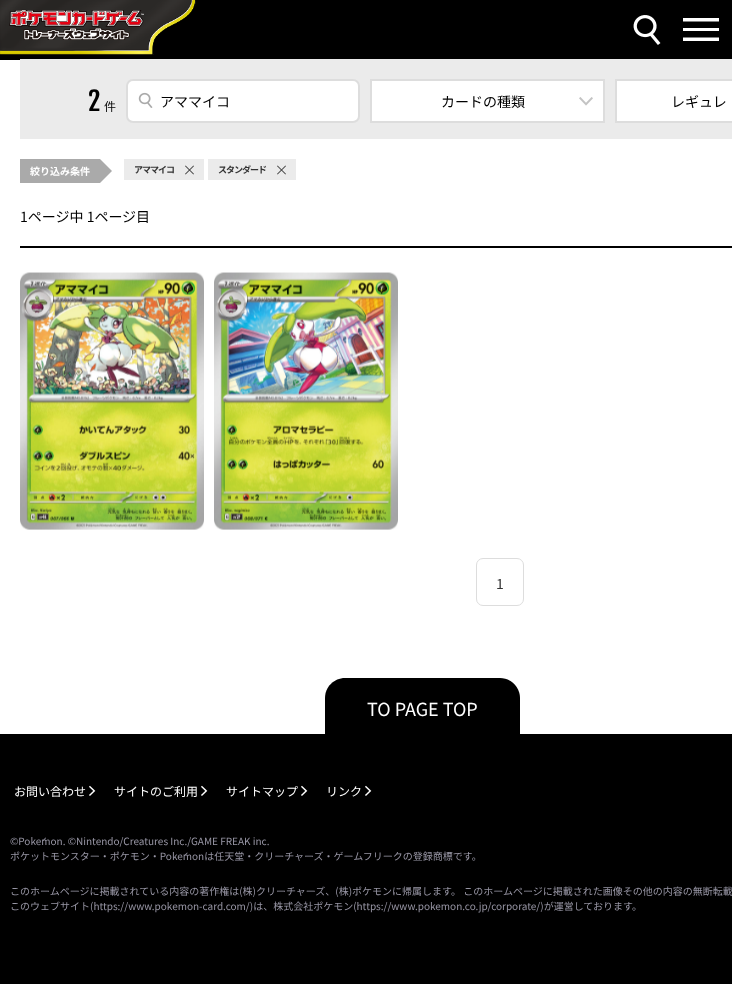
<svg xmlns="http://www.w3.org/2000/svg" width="732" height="984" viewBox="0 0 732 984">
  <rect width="100%" height="100%" fill="#000000"/>
  <rect x="0" y="60" width="732" height="674" fill="#ffffff"/>
  <image x="0" y="0" width="196" height="55" href="img1.png"/>
  <image x="9" y="9" width="135" height="31" href="img2.png"/>
  <image x="633" y="15" width="28" height="30" href="img3.png"/>
  <path d="M683 37.5H719V41H683ZM683 28H719V31H683ZM683 18H719V21.5H683Z" fill="#ffffff"/>
  <rect x="20" y="59" width="712" height="80" fill="#ebebeb"/>
  <text x="88" y="111" font-family="Fjalla One" font-size="26" fill="#000000">2</text>
  <text x="104" y="111" font-family="Noto Sans JP" font-size="12" fill="#000000">件</text>
  <rect x="127" y="80" width="232" height="42" rx="6" fill="#ffffff" stroke="#dddddd" stroke-width="2"/>
  <image x="138" y="92" width="15" height="16" href="img4.png"/>
  <text x="160" y="107" font-family="Noto Sans JP" font-size="14" fill="#000000">アママイコ</text>
  <rect x="371" y="80" width="233" height="42" fill="#ffffff" stroke="#dddddd" stroke-width="2"/>
  <text x="441" y="107" font-family="Noto Sans JP" font-size="14" fill="#000000">カードの種類</text>
  <image x="579" y="97" width="14" height="9" href="img5.png"/>
  <rect x="616" y="80" width="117" height="42" fill="#ffffff" stroke="#dddddd" stroke-width="2"/>
  <text x="671" y="107" font-family="Noto Sans JP" font-size="14" fill="#000000">レギュレ</text>
  <rect x="20" y="159" width="80" height="24" fill="#aaaaaa"/>
  <text x="30" y="175" font-family="Noto Sans JP" font-size="10" font-weight="bold" fill="#ffffff">絞り込み条件</text>
  <path d="M100 183V159L112 171Z" fill="#aaaaaa"/>
  <rect x="124" y="159" width="80" height="21" fill="#ebebeb"/>
  <text x="134" y="173" font-family="Noto Sans JP" font-size="9" font-weight="bold" letter-spacing="-1" fill="#333333">アママイコ</text>
  <image x="185" y="165" width="9" height="10" href="img6.png"/>
  <rect x="208" y="159" width="88" height="21" fill="#ebebeb"/>
  <text x="218" y="173" font-family="Noto Sans JP" font-size="9" font-weight="bold" letter-spacing="-1" fill="#333333">スタンダード</text>
  <image x="277" y="165" width="9" height="10" href="img6.png"/>
  <text x="20" y="222" font-family="Noto Sans JP" font-size="14" fill="#000000">1ページ中 1ページ目</text>
  <rect x="20" y="246" width="712" height="2" fill="#000000"/>
  <image x="20" y="272" width="184" height="258" href="img7.png"/>
  <image x="214" y="272" width="184" height="258" href="img8.png"/>
  <rect x="476.5" y="558.5" width="47" height="47" rx="6.5" fill="none" stroke="#dddddd"/>
  <text x="496" y="589" font-family="Noto Sans JP" font-size="14" fill="#333333">1</text>
  <path d="M345 678H500C511 678 520 687 520 698V734H325V698C325 687 334 678 345 678Z" fill="#000000"/>
  <text x="367" y="716" font-family="Noto Sans JP" font-size="18" fill="#ffffff">TO PAGE TOP</text>
  <text x="14" y="796" font-family="Noto Sans JP" font-size="12" fill="#ffffff">お問い合わせ</text>
  <image x="89" y="785" width="7" height="11" href="img9.png"/>
  <text x="114" y="796" font-family="Noto Sans JP" font-size="12" fill="#ffffff">サイトのご利用</text>
  <image x="201" y="785" width="7" height="11" href="img9.png"/>
  <text x="226" y="796" font-family="Noto Sans JP" font-size="12" fill="#ffffff">サイトマップ</text>
  <image x="301" y="785" width="7" height="11" href="img9.png"/>
  <text x="326" y="796" font-family="Noto Sans JP" font-size="12" fill="#ffffff">リンク</text>
  <image x="365" y="785" width="7" height="11" href="img9.png"/>
  <text x="10" y="845" font-family="Noto Sans JP" font-size="10" fill="#9896a5">©Pokémon. ©Nintendo/Creatures Inc./GAME FREAK inc.</text>
  <text x="10" y="860" font-family="Noto Sans JP" font-size="10" fill="#9896a5">ポケットモンスター・ポケモン・Pokémonは任天堂・クリーチャーズ・ゲームフリークの登録商標です。</text>
  <text x="10" y="895" font-family="Noto Sans JP" font-size="10" fill="#9896a5">このホームページに掲載されている内容の著作権は(株)クリーチャーズ、(株)ポケモンに帰属します。 このホームページに掲載された画像その他の内容の無断転載</text>
  <text x="10" y="910" font-family="Noto Sans JP" font-size="10" fill="#9896a5">このウェブサイト(https://www.pokemon-card.com/)は、株式会社ポケモン(https://www.pokemon.co.jp/corporate/)が運営しております。</text>
</svg>
